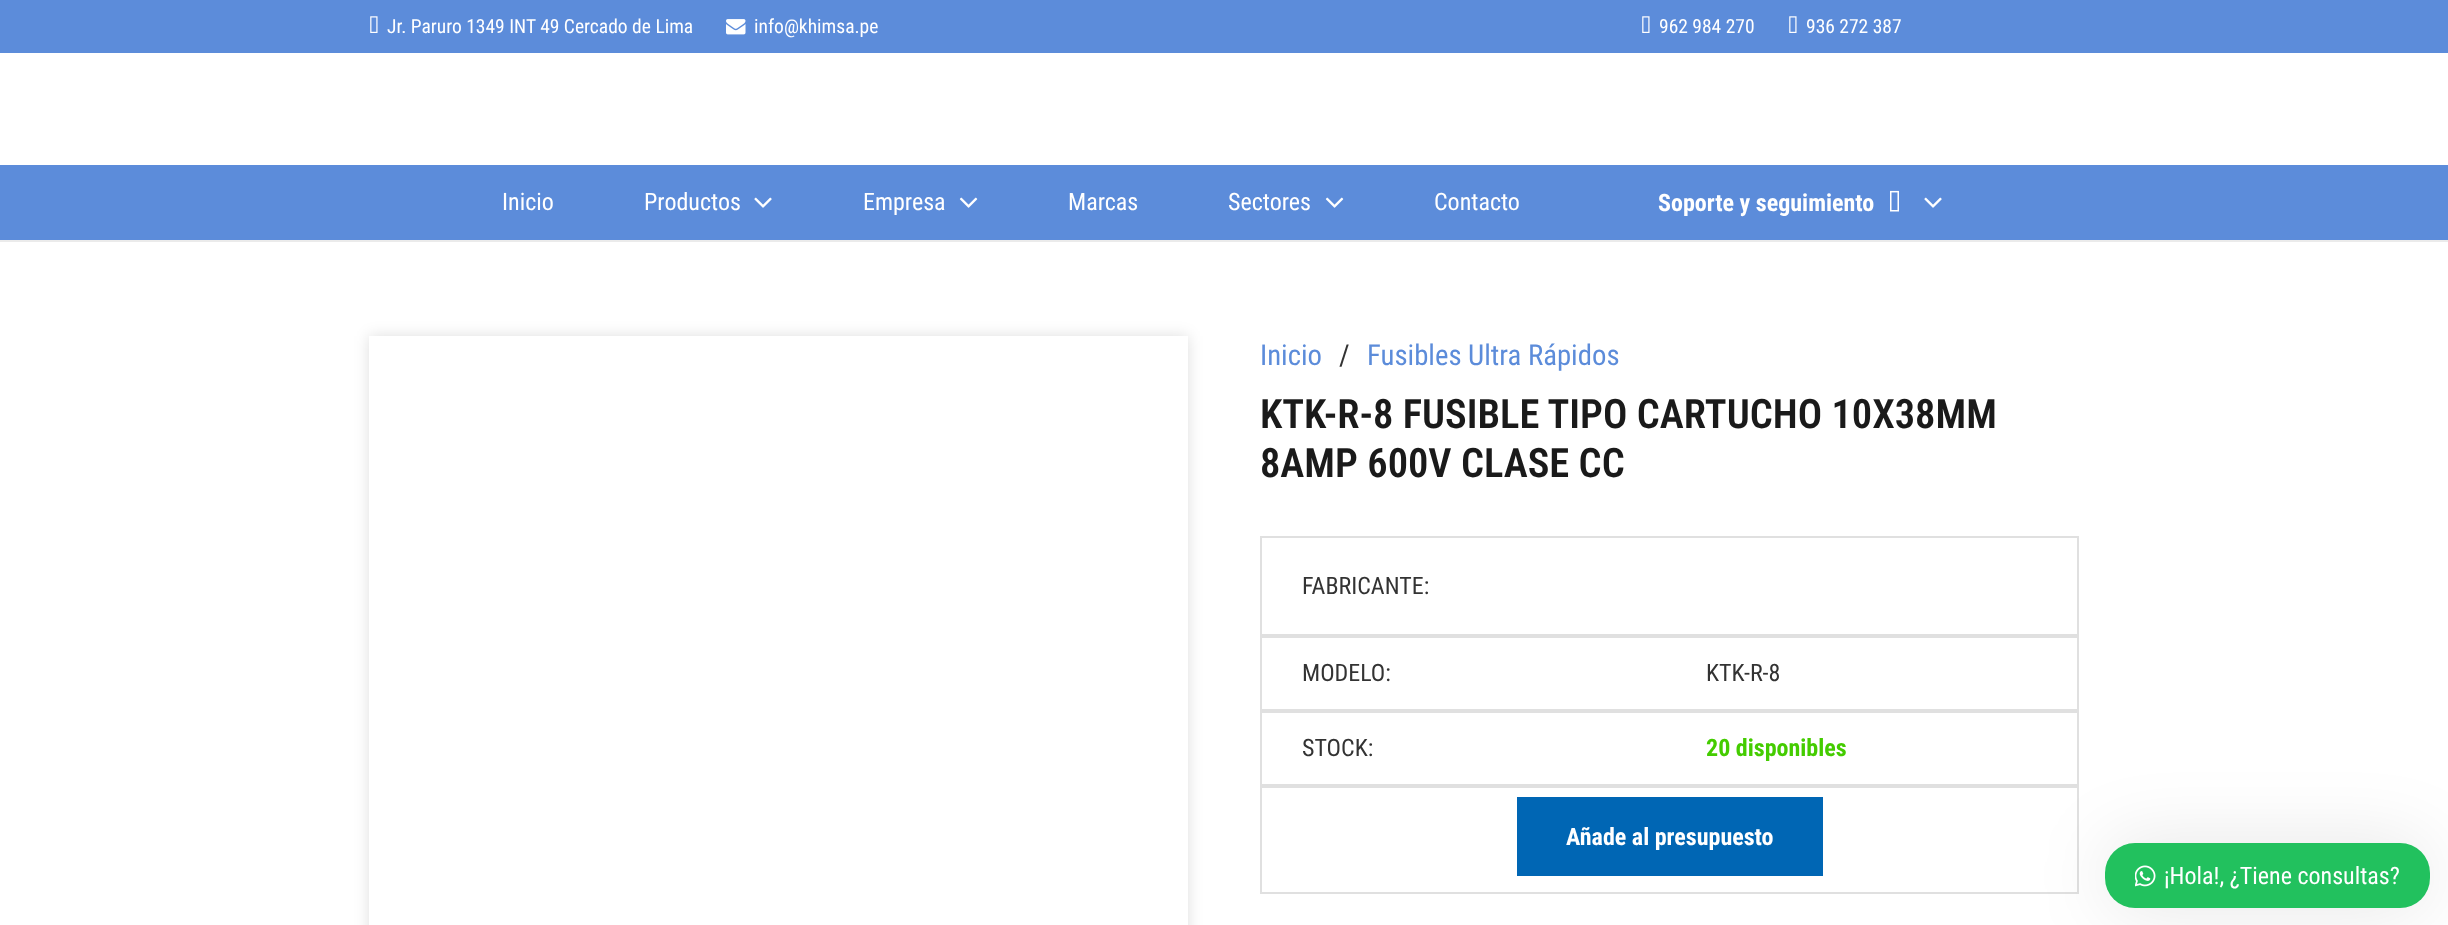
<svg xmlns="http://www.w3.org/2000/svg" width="2448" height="925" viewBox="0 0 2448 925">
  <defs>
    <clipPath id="clip1"><path d="M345 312H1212V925H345ZM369 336H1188V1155H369Z" clip-rule="evenodd"/></clipPath>
    <filter id="blur1" x="-50%" y="-200%" width="200%" height="500%"><feGaussianBlur stdDeviation="7.5"/></filter>
    <filter id="blur2" x="-50%" y="-200%" width="200%" height="500%"><feGaussianBlur stdDeviation="37.5"/></filter>
  </defs>
  <rect width="100%" height="100%" fill="#ffffff"/>
  <rect x="0" y="0" width="2448" height="53" fill="#5c8cda"/>
  <image x="370" y="16" width="8" height="17" href="img1.png"/>
  <text x="387" y="33" font-family="Roboto Condensed" font-size="19.5" fill="#ffffff">Jr. Paruro 1349 INT 49 Cercado de Lima</text>
  <image x="726" y="19" width="20" height="16" href="img2.png"/>
  <text x="754" y="33" font-family="Roboto Condensed" font-size="19.5" fill="#ffffff">info@khimsa.pe</text>
  <image x="1642" y="16" width="8" height="17" href="img1.png"/>
  <text x="1659" y="33" font-family="Roboto Condensed" font-size="19.5" fill="#ffffff">962 984 270</text>
  <image x="1789" y="16" width="8" height="17" href="img1.png"/>
  <text x="1806" y="33" font-family="Roboto Condensed" font-size="19.5" fill="#ffffff">936 272 387</text>
  <rect x="0" y="240" width="2448" height="2" fill="#ebebeb"/>
  <rect x="0" y="165" width="2448" height="75" fill="#5c8cda"/>
  <text x="502" y="210" font-family="Roboto Condensed" font-size="24" fill="#ffffff">Inicio</text>
  <text x="644" y="210" font-family="Roboto Condensed" font-size="24" fill="#ffffff">Productos</text>
  <image x="754" y="197" width="18" height="11" href="img3.png"/>
  <text x="863" y="210" font-family="Roboto Condensed" font-size="24" fill="#ffffff">Empresa</text>
  <image x="959" y="197" width="19" height="11" href="img4.png"/>
  <text x="1068" y="210" font-family="Roboto Condensed" font-size="24" fill="#ffffff">Marcas</text>
  <text x="1228" y="210" font-family="Roboto Condensed" font-size="24" fill="#ffffff">Sectores</text>
  <image x="1325" y="197" width="19" height="11" href="img4.png"/>
  <text x="1434" y="210" font-family="Roboto Condensed" font-size="24" fill="#ffffff">Contacto</text>
  <text x="1658" y="211" font-family="Roboto Condensed" font-size="24" font-weight="bold" fill="#ffffff">Soporte y seguimiento</text>
  <image x="1890" y="190" width="9" height="22" href="img5.png"/>
  <image x="1924" y="197" width="18" height="11" href="img3.png"/>
  <g clip-path="url(#clip1)">
    <rect x="369" y="336" width="819" height="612" fill="#000000" fill-opacity="0.13" filter="url(#blur1)"/>
  </g>
  <text x="1260" y="365" font-family="Roboto Condensed" font-size="28.75" fill="#5c8cda">Inicio</text>
  <text x="1339" y="365" font-family="Roboto Condensed" font-size="28.75" fill="#333333">/</text>
  <text x="1367" y="365" font-family="Roboto Condensed" font-size="28.75" fill="#5c8cda">Fusibles Ultra Rápidos</text>
  <text x="1260" y="428" font-family="Roboto Condensed" font-size="40.5" font-weight="600" fill="#1a1a1a">KTK-R-8 FUSIBLE TIPO CARTUCHO 10X38MM</text>
  <text x="1260" y="477" font-family="Roboto Condensed" font-size="40.5" font-weight="600" fill="#1a1a1a">8AMP 600V CLASE CC</text>
  <rect x="1261" y="537" width="817" height="98" fill="none" stroke="#e0e0e0" stroke-width="2"/>
  <text x="1302" y="594" font-family="Roboto Condensed" font-size="24" fill="#333333">FABRICANTE:</text>
  <rect x="1261" y="637" width="817" height="73" fill="none" stroke="#e0e0e0" stroke-width="2"/>
  <text x="1302" y="681" font-family="Roboto Condensed" font-size="24" fill="#333333">MODELO:</text>
  <text x="1706" y="681" font-family="Roboto Condensed" font-size="24" fill="#333333">KTK-R-8</text>
  <rect x="1261" y="712" width="817" height="73" fill="none" stroke="#e0e0e0" stroke-width="2"/>
  <text x="1302" y="756" font-family="Roboto Condensed" font-size="24" fill="#333333">STOCK:</text>
  <text x="1706" y="756" font-family="Roboto Condensed" font-size="24" font-weight="bold" fill="#44cc00">20 disponibles</text>
  <rect x="1261" y="787" width="817" height="106" fill="none" stroke="#e0e0e0" stroke-width="2"/>
  <rect x="1517" y="797" width="306" height="79" fill="#0066b4"/>
  <text x="1566" y="845" font-family="Roboto Condensed" font-size="24" font-weight="bold" fill="#ffffff">Añade al presupuesto</text>
  <rect x="2105" y="843" width="325" height="65" rx="30" fill="#000000" fill-opacity="0.1" filter="url(#blur2)"/>
  <rect x="2105" y="843" width="325" height="65" rx="30" fill="#22c15e"/>
  <image x="2135" y="865" width="21" height="22" href="img6.png"/>
  <text x="2164" y="884" font-family="Roboto Condensed" font-size="24" fill="#ffffff">¡Hola!, ¿Tiene consultas?</text>
</svg>
